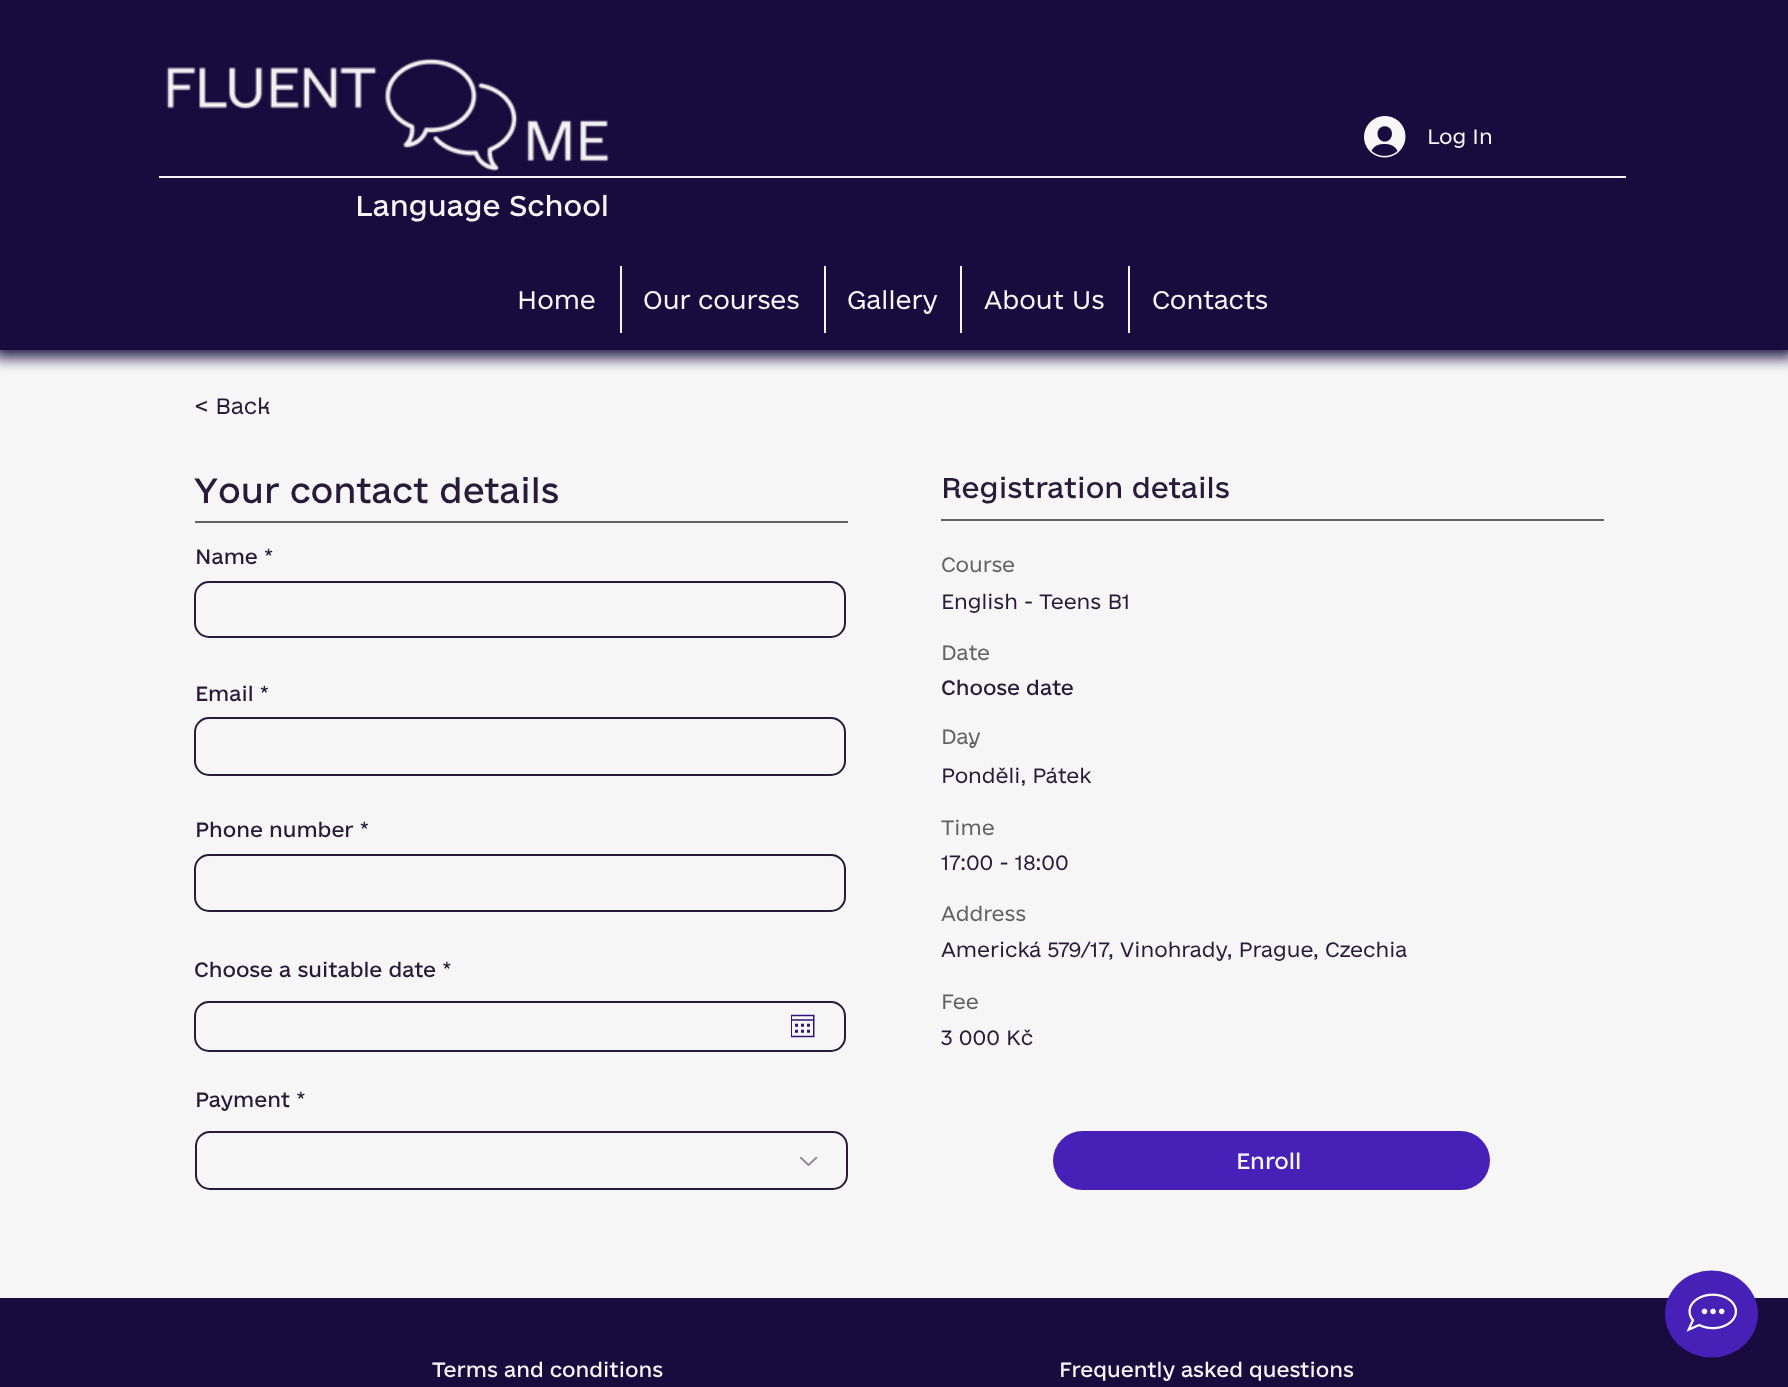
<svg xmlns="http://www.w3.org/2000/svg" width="1788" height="1387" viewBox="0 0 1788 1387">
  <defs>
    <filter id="blur1" x="-50%" y="-200%" width="200%" height="500%"><feGaussianBlur stdDeviation="7.5"/></filter>
  </defs>
  <rect width="100%" height="100%" fill="#f6f6f6"/>
  <rect x="-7" y="-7" width="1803" height="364" fill="#180b3d" filter="url(#blur1)"/>
  <rect x="0" y="0" width="1788" height="350" fill="#180b3d"/>
  <image x="166" y="58" width="444" height="113" href="img1.png"/>
  <image x="1364" y="116" width="42" height="42" href="img2.png"/>
  <text x="1427" y="144" font-family="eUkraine" font-size="19.5" font-weight="300" fill="#f6f6f6">Log In</text>
  <rect x="159" y="176" width="1467" height="2" fill="#f6f6f6"/>
  <text x="355" y="216" font-family="eUkraine" font-size="27" fill="#f6f6f6">Language School</text>
  <text x="517" y="309" font-family="eUkraine" font-size="24" font-weight="300" fill="#f6f6f6">Home</text>
  <rect x="620" y="266" width="2" height="67" fill="#f6f6f6"/>
  <text x="643" y="309" font-family="eUkraine" font-size="24" font-weight="300" fill="#f6f6f6">Our courses</text>
  <rect x="824" y="266" width="2" height="67" fill="#f6f6f6"/>
  <text x="847" y="309" font-family="eUkraine" font-size="24" font-weight="300" fill="#f6f6f6">Gallery</text>
  <rect x="960" y="266" width="2" height="67" fill="#f6f6f6"/>
  <text x="984" y="309" font-family="eUkraine" font-size="24" font-weight="300" fill="#f6f6f6">About Us</text>
  <rect x="1128" y="266" width="2" height="67" fill="#f6f6f6"/>
  <text x="1152" y="309" font-family="eUkraine" font-size="24" font-weight="300" fill="#f6f6f6">Contacts</text>
  <text x="194" y="414" font-family="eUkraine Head" font-size="21" font-weight="300" fill="#281a39">&lt; Back</text>
  <text x="194" y="503" font-family="eUkraine" font-size="33" fill="#281a39">Your contact details</text>
  <rect x="195" y="521" width="653" height="2" fill="#626262"/>
  <text x="195" y="564" font-family="eUkraine" font-size="19.5" fill="#281a39">Name *</text>
  <rect x="195" y="582" width="650" height="55" rx="14" fill="none" stroke="#281a39" stroke-width="2"/>
  <text x="195" y="701" font-family="eUkraine" font-size="19.5" fill="#281a39">Email *</text>
  <rect x="195" y="718" width="650" height="57" rx="14" fill="none" stroke="#281a39" stroke-width="2"/>
  <text x="195" y="837" font-family="eUkraine" font-size="19.5" fill="#281a39">Phone number *</text>
  <rect x="195" y="855" width="650" height="56" rx="14" fill="none" stroke="#281a39" stroke-width="2"/>
  <text x="195" y="1107" font-family="eUkraine" font-size="19.5" fill="#281a39">Payment *</text>
  <rect x="196" y="1132" width="651" height="57" rx="14" fill="none" stroke="#281a39" stroke-width="2"/>
  <image x="800" y="1157" width="18" height="9" href="img3.png"/>
  <text x="941" y="498" font-family="eUkraine Head" font-size="27" fill="#281a39">Registration details</text>
  <rect x="941" y="519" width="663" height="2" fill="#626262"/>
  <text x="941" y="572" font-family="eUkraine Head" font-size="19.5" font-weight="300" fill="#626262">Course</text>
  <text x="941" y="609" font-family="eUkraine" font-size="19.5" font-weight="300" fill="#281a39">English - Teens B1</text>
  <text x="941" y="660" font-family="eUkraine Head" font-size="19.5" font-weight="300" fill="#626262">Date</text>
  <text x="941" y="695" font-family="eUkraine" font-size="19.5" fill="#281a39">Choose date</text>
  <text x="941" y="744" font-family="eUkraine Head" font-size="19.5" font-weight="300" fill="#626262">Day</text>
  <text x="941" y="783" font-family="eUkraine" font-size="19.5" font-weight="300" fill="#281a39">Ponděli, Pátek</text>
  <text x="941" y="835" font-family="eUkraine Head" font-size="19.5" font-weight="300" fill="#626262">Time</text>
  <text x="941" y="870" font-family="eUkraine" font-size="19.5" font-weight="300" fill="#281a39">17:00 - 18:00</text>
  <text x="941" y="921" font-family="eUkraine Head" font-size="19.5" font-weight="300" fill="#626262">Address</text>
  <text x="941" y="957" font-family="eUkraine" font-size="19.5" font-weight="300" fill="#281a39">Americká 579/17, Vinohrady, Prague, Czechia</text>
  <text x="941" y="1009" font-family="eUkraine Head" font-size="19.5" font-weight="300" fill="#626262">Fee</text>
  <text x="941" y="1045" font-family="eUkraine" font-size="19.5" font-weight="300" fill="#281a39">3 000 Kč</text>
  <text x="194" y="977" font-family="eUkraine" font-size="19.5" fill="#281a39">Choose a suitable date *</text>
  <rect x="195" y="1002" width="650" height="49" rx="14" fill="none" stroke="#281a39" stroke-width="2"/>
  <image x="791" y="1014" width="24" height="24" href="img4.png"/>
  <rect x="1053" y="1131" width="437" height="59" rx="29.5" fill="#4720b7"/>
  <text x="1236" y="1169" font-family="eUkraine" font-size="21" fill="#f6f6f6">Enroll</text>
  <rect x="0" y="1298" width="1788" height="89" fill="#180b3d"/>
  <ellipse cx="1711.5" cy="1314" rx="46.5" ry="43.5" fill="#4720b7"/>
  <image x="1686" y="1293" width="52" height="39" href="img5.png"/>
  <text x="432" y="1377" font-family="eUkraine" font-size="19.5" fill="#f6f6f6">Terms and conditions</text>
  <text x="1059" y="1377" font-family="eUkraine" font-size="19.5" fill="#f6f6f6">Frequently asked questions</text>
</svg>
